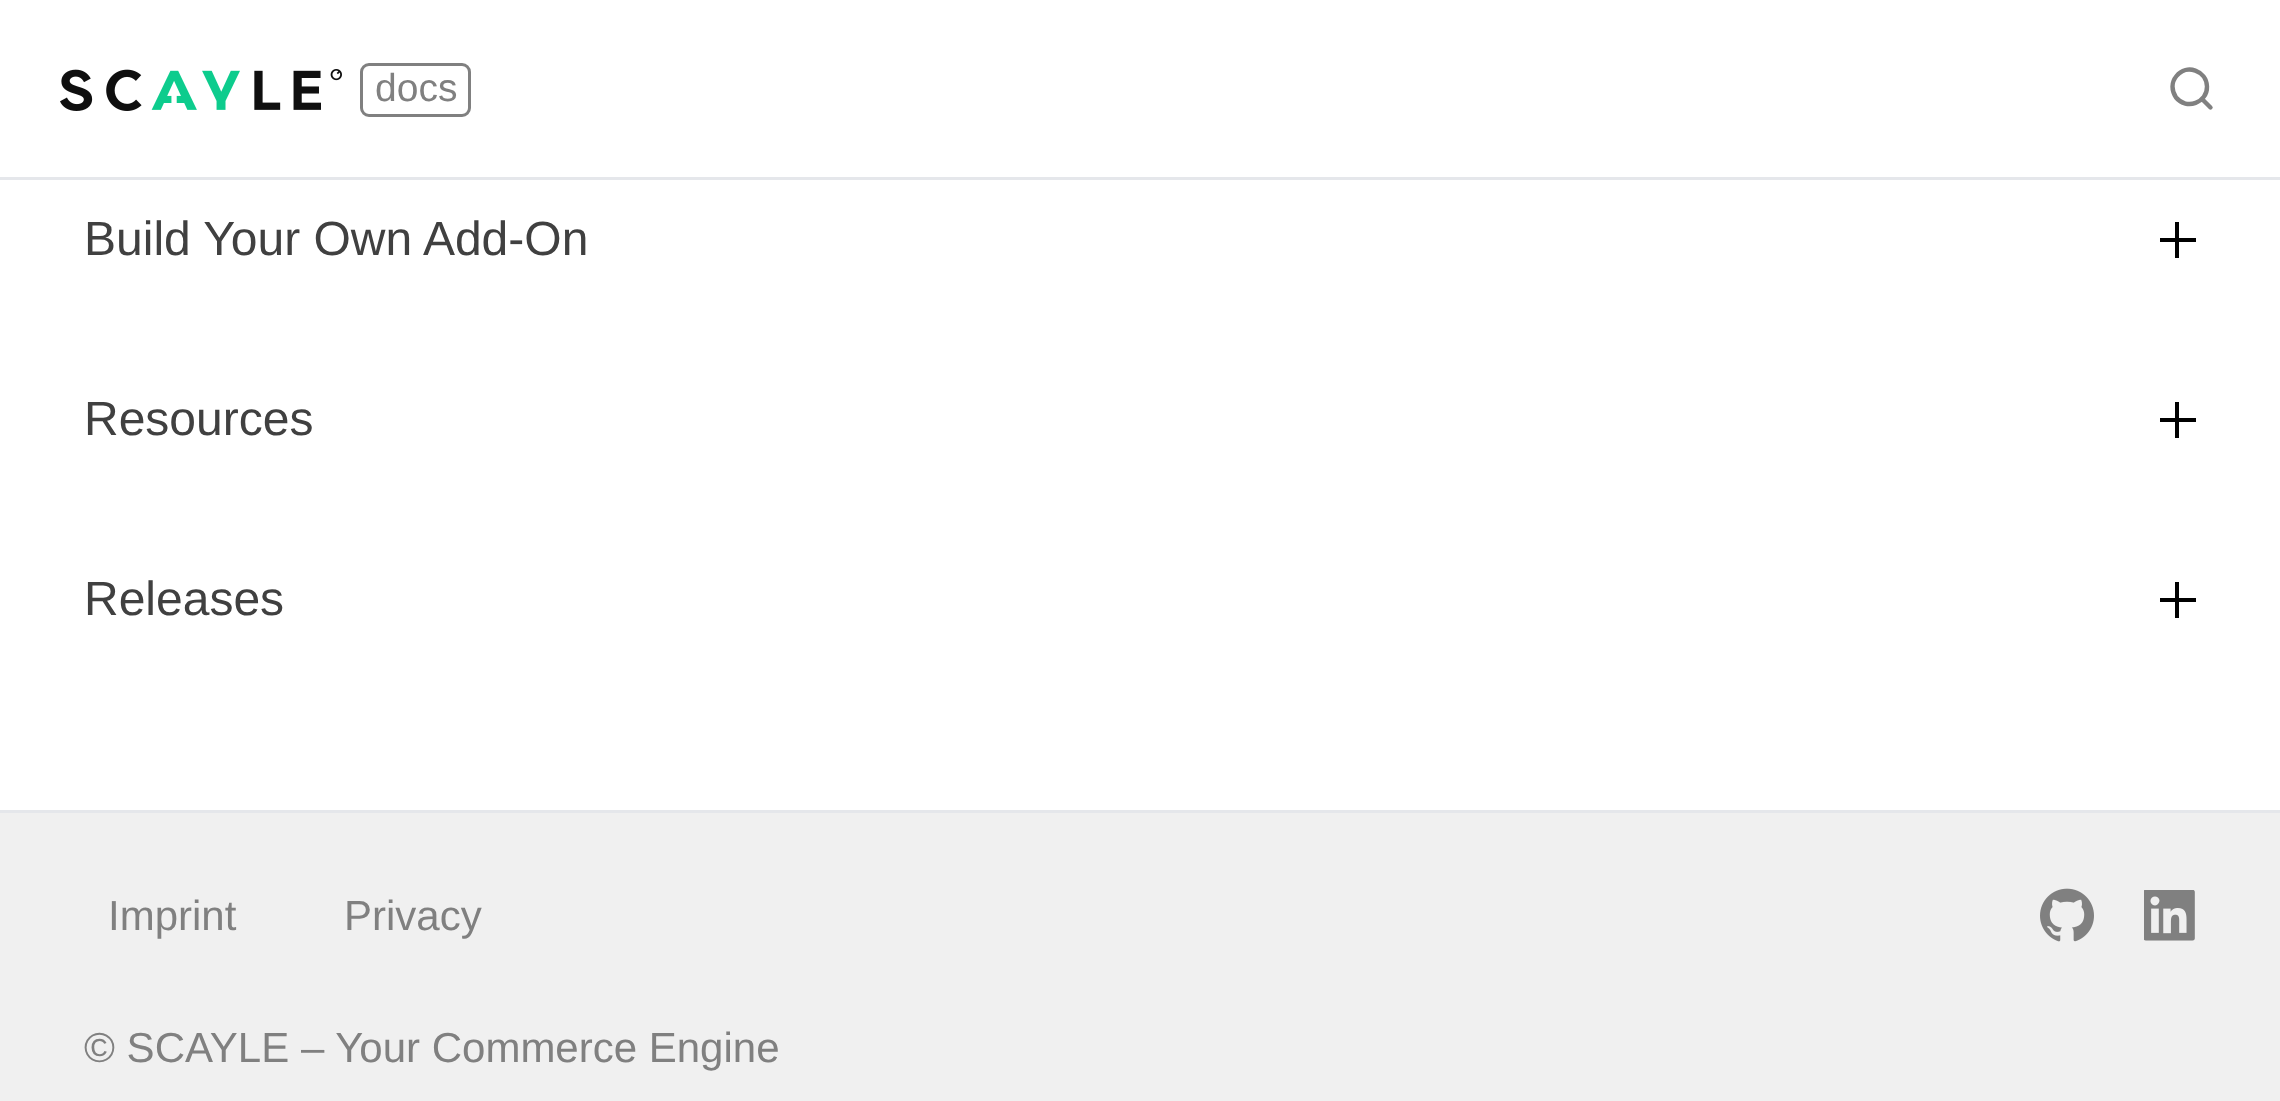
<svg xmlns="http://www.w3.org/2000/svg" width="2280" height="1101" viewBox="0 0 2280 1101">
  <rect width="100%" height="100%" fill="#ffffff"/>
  <rect x="0" y="177" width="2280" height="3" fill="#e5e7eb"/>
  <image x="60" y="69" width="282" height="42" href="img1.png"/>
  <rect x="361.5" y="64.5" width="108" height="51" rx="7.5" fill="none" stroke="#808080" stroke-width="3"/>
  <text x="375" y="101" font-family="Liberation Sans" font-size="39" fill="#808080">docs</text>
  <path d="M2210.5 107.5L2202 99M2172.5 86.5C2172.5 90.5 2174 94.5 2176 97.5C2186.5 110.5 2207.5 102.5 2207 86.5C2206.5 70.5 2186.5 63.5 2176.5 76C2174 79 2172.5 83 2172.5 86.5Z" fill="none" stroke="#808080" stroke-width="4.4" stroke-linecap="round" stroke-linejoin="round"/>
  <text x="84" y="255" font-family="Liberation Sans" font-size="48" fill="#404040">Build Your Own Add-On</text>
  <rect x="2160" y="238" width="36" height="4" fill="#000000"/>
  <rect x="2175" y="222" width="4" height="36" fill="#000000"/>
  <text x="84" y="435" font-family="Liberation Sans" font-size="48" fill="#404040">Resources</text>
  <rect x="2160" y="418" width="36" height="4" fill="#000000"/>
  <rect x="2175" y="402" width="4" height="36" fill="#000000"/>
  <text x="84" y="615" font-family="Liberation Sans" font-size="48" fill="#404040">Releases</text>
  <rect x="2160" y="598" width="36" height="4" fill="#000000"/>
  <rect x="2175" y="582" width="4" height="36" fill="#000000"/>
  <rect x="0" y="813" width="2280" height="288" fill="#f0f0f0"/>
  <rect x="0" y="810" width="2280" height="3" fill="#e5e7eb"/>
  <text x="108" y="930" font-family="Liberation Sans" font-size="42" fill="#808080">Imprint</text>
  <text x="344" y="930" font-family="Liberation Sans" font-size="42" fill="#808080">Privacy</text>
  <image x="2040" y="888" width="54" height="54" href="img2.png"/>
  <image x="2144" y="890" width="51" height="51" href="img3.png"/>
  <text x="84" y="1062" font-family="Liberation Sans" font-size="42" fill="#808080">© SCAYLE – Your Commerce Engine</text>
</svg>
